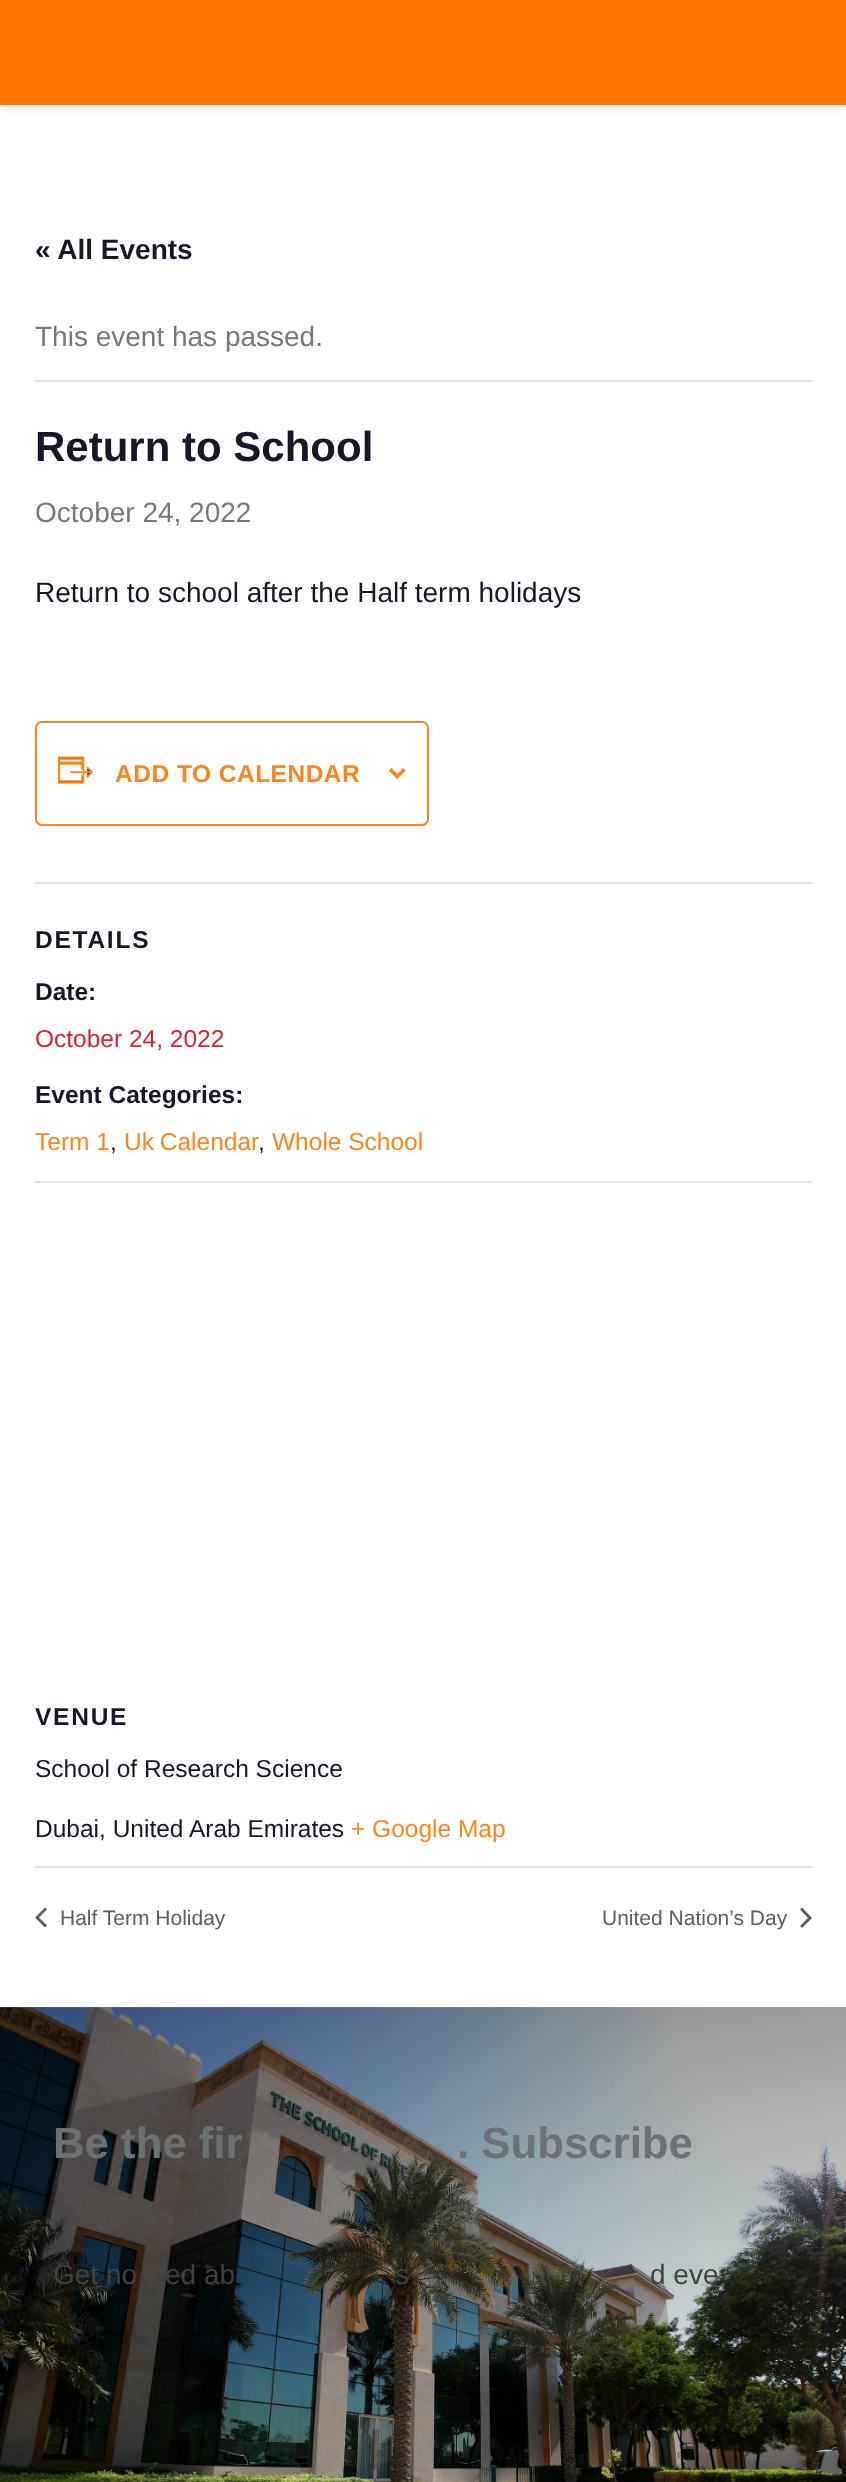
<svg xmlns="http://www.w3.org/2000/svg" width="846" height="2482" viewBox="0 0 846 2482">
  <defs>
    <filter id="blur1" x="-50%" y="-200%" width="200%" height="500%"><feGaussianBlur stdDeviation="7"/></filter>
    <linearGradient id="g1" gradientUnits="userSpaceOnUse" x1="480" y1="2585" x2="367" y2="1943"><stop offset="0" stop-color="#000000" stop-opacity="0"/><stop offset="1" stop-color="#000000" stop-opacity="0.5"/></linearGradient>
  </defs>
  <rect width="100%" height="100%" fill="#ffffff"/>
  <rect x="0" y="2" width="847" height="105" fill="#000000" fill-opacity="0.1" filter="url(#blur1)"/>
  <rect x="0" y="0" width="846" height="105" fill="#ff7600"/>
  <text x="35" y="259" font-family="Liberation Sans" font-size="28" font-weight="bold" fill="#141827">« All Events</text>
  <rect x="35" y="380" width="777" height="2" fill="#e4e4e4"/>
  <text x="35" y="346" font-family="Liberation Sans" font-size="28" fill="#777777">This event has passed.</text>
  <text x="35" y="461" font-family="Liberation Sans" font-size="42" font-weight="bold" fill="#141827">Return to School</text>
  <text x="35" y="522" font-family="Liberation Sans" font-size="28" fill="#777777">October 24, 2022</text>
  <text x="35" y="602" font-family="Liberation Sans" font-size="28" fill="#141827">Return to school after the Half term holidays</text>
  <rect x="36" y="722" width="392" height="103" rx="6" fill="none" stroke="#fd841b" stroke-width="2"/>
  <image x="58" y="756" width="35" height="28" href="img1.png"/>
  <text x="115" y="782" font-family="Liberation Sans" font-size="24.5" font-weight="bold" letter-spacing="0.5" fill="#fd841b">ADD TO CALENDAR</text>
  <image x="389" y="768" width="17" height="11" href="img2.png"/>
  <rect x="35" y="882" width="777" height="2" fill="#e4e4e4"/>
  <text x="35" y="948" font-family="Liberation Sans" font-size="24.5" font-weight="bold" letter-spacing="1.75" fill="#141827">DETAILS</text>
  <text x="35" y="1000" font-family="Liberation Sans" font-size="24.5" font-weight="bold" fill="#141827">Date:</text>
  <text x="35" y="1047" font-family="Liberation Sans" font-size="24.5" fill="#d62432">October 24, 2022</text>
  <text x="35" y="1103" font-family="Liberation Sans" font-size="24.5" font-weight="bold" fill="#141827">Event Categories:</text>
  <text x="35" y="1150" font-family="Liberation Sans" font-size="24.5" fill="#fd841b">Term 1</text>
  <text x="110" y="1150" font-family="Liberation Sans" font-size="24.5" fill="#141827">,</text>
  <text x="124" y="1150" word-spacing="-1" font-family="Liberation Sans" font-size="24.5" fill="#fd841b">Uk Calendar</text>
  <text x="258" y="1150" font-family="Liberation Sans" font-size="24.5" fill="#141827">,</text>
  <text x="272" y="1150" font-family="Liberation Sans" font-size="24.5" fill="#fd841b">Whole School</text>
  <rect x="35" y="1181" width="777" height="2" fill="#e4e4e4"/>
  <text x="35" y="1725" font-family="Liberation Sans" font-size="24.5" font-weight="bold" letter-spacing="1.75" fill="#141827">VENUE</text>
  <text x="35" y="1777" font-family="Liberation Sans" font-size="24.5" fill="#141827">School of Research Science</text>
  <text x="35" y="1837" font-family="Liberation Sans" font-size="24.5" fill="#141827">Dubai, United Arab Emirates</text>
  <text x="351" y="1837" font-family="Liberation Sans" font-size="24.5" fill="#fd841b">+ Google Map</text>
  <rect x="35" y="1866" width="777" height="2" fill="#e4e4e4"/>
  <path d="M47 1925.5L45 1927.5L35 1917.5L45 1907.5L47 1909.5L39 1917.5Z" fill="#5d5d5d"/>
  <text x="60" y="1925" font-family="Liberation Sans" font-size="21" fill="#5d5d5d">Half Term Holiday</text>
  <text x="602" y="1925" font-family="Liberation Sans" font-size="21" fill="#5d5d5d">United Nation’s Day</text>
  <path d="M800 1909.5L802 1907.5L812 1918L802 1928L800 1926L808 1918Z" fill="#5d5d5d"/>
  <image x="0" y="2007" width="846" height="475" href="img3.png"/>
  <rect x="0" y="2007" width="846" height="475" fill="url(#g1)"/>
  <text x="53" y="2158" font-family="Liberation Sans" font-size="43.75" font-weight="bold" fill="#6e7173">Be the fir</text>
  <text x="457" y="2158" font-family="Liberation Sans" font-size="43.75" font-weight="bold" fill="#6e7173">. Subscribe</text>
  <text x="53" y="2284" font-family="Liberation Sans" font-size="28" fill="#3f433e">Get no</text>
  <text x="165" y="2284" font-family="Liberation Sans" font-size="28" fill="#3f433e">ed ab</text>
  <text x="395" y="2284" font-family="Liberation Sans" font-size="28" fill="#3f433e">s</text>
  <text x="650" y="2284" font-family="Liberation Sans" font-size="28" fill="#3f433e">d eve</text>
  <text x="756" y="2284" font-family="Liberation Sans" font-size="28" fill="#3f433e">.</text>
</svg>
